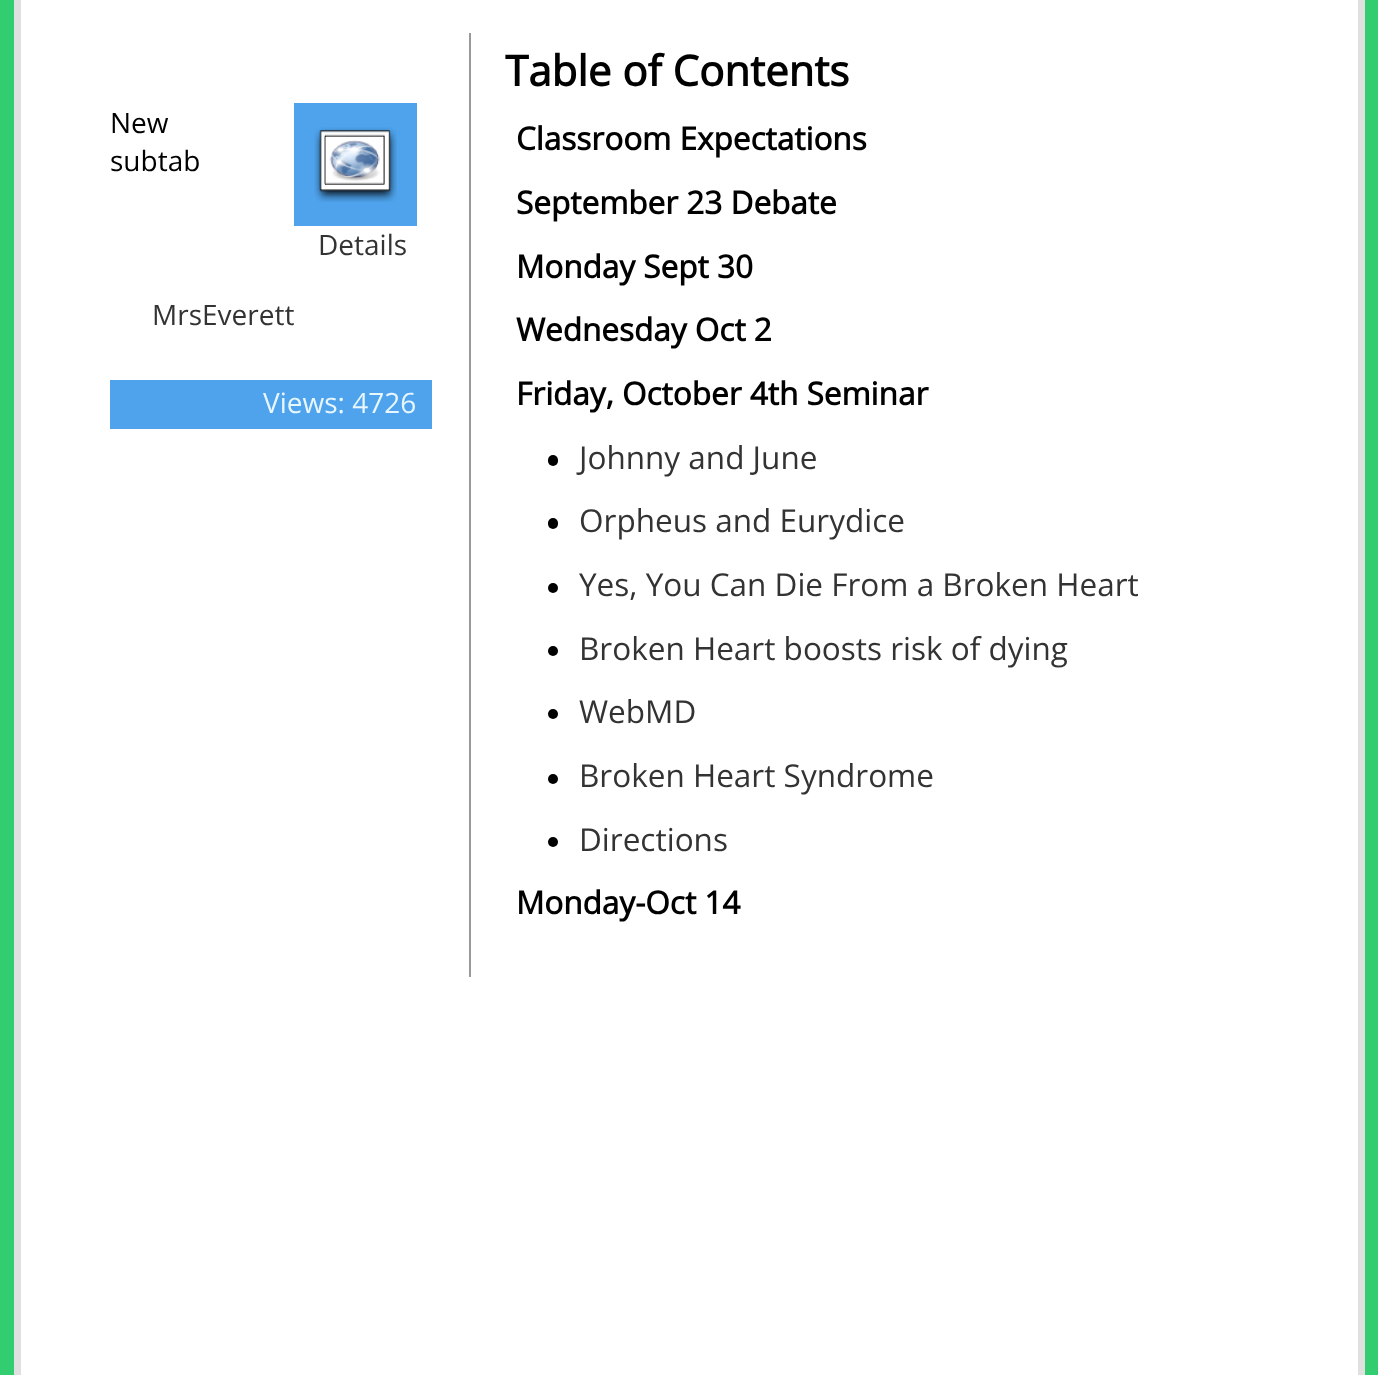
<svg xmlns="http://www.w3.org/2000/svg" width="1378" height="1375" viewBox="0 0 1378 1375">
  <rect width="100%" height="100%" fill="#32cd70"/>
  <rect x="21" y="0" width="1337" height="1375" fill="#ffffff"/>
  <rect x="1358" y="0" width="7" height="1375" fill="#e0e0e0"/>
  <rect x="14" y="0" width="7" height="1375" fill="#e0e0e0"/>
  <rect x="469" y="33" width="2" height="944" fill="#999999"/>
  <text x="505" y="86" font-family="Open Sans" font-size="42" font-weight="bold" fill="#000000">Table of Contents</text>
  <text x="110" y="133" font-family="Open Sans" font-size="28" fill="#000000">New</text>
  <text x="110" y="171" font-family="Open Sans" font-size="28" fill="#000000">subtab</text>
  <rect x="294" y="103" width="123" height="123" fill="#4ea3ec"/>
  <image x="314" y="127" width="83" height="75" href="img1.png"/>
  <text x="318" y="255" font-family="Open Sans" font-size="28" fill="#333333">Details</text>
  <text x="152" y="325" font-family="Open Sans" font-size="28" fill="#333333">MrsEverett</text>
  <rect x="110" y="380" width="322" height="49" fill="#4ea3ec"/>
  <text x="263" y="413" font-family="Open Sans" font-size="28" fill="#e8f6fd">Views: 4726</text>
  <text x="516" y="150" font-family="Open Sans" font-size="31.5" font-weight="bold" fill="#000000">Classroom Expectations</text>
  <text x="516" y="214" font-family="Open Sans" font-size="31.5" font-weight="bold" fill="#000000">September 23 Debate</text>
  <text x="516" y="278" font-family="Open Sans" font-size="31.5" font-weight="bold" fill="#000000">Monday Sept 30</text>
  <text x="516" y="341" font-family="Open Sans" font-size="31.5" font-weight="bold" fill="#000000">Wednesday Oct 2</text>
  <text x="516" y="405" font-family="Open Sans" font-size="31.5" font-weight="bold" fill="#000000">Friday, October 4th Seminar</text>
  <rect x="548" y="455" width="10" height="11" rx="5" fill="#000000"/>
  <text x="579" y="469" font-family="Open Sans" font-size="31.5" fill="#333333">Johnny and June</text>
  <rect x="548" y="518" width="10" height="11" rx="5" fill="#000000"/>
  <text x="579" y="532" font-family="Open Sans" font-size="31.5" fill="#333333">Orpheus and Eurydice</text>
  <circle cx="553" cy="588" r="5" fill="#000000"/>
  <text x="579" y="596" font-family="Open Sans" font-size="31.5" fill="#333333">Yes, You Can Die From a Broken Heart</text>
  <circle cx="553" cy="651" r="5" fill="#000000"/>
  <text x="579" y="660" font-family="Open Sans" font-size="31.5" fill="#333333">Broken Heart boosts risk of dying</text>
  <circle cx="553" cy="714" r="5" fill="#000000"/>
  <text x="579" y="723" font-family="Open Sans" font-size="31.5" fill="#333333">WebMD</text>
  <circle cx="553" cy="779" r="5" fill="#000000"/>
  <text x="579" y="787" font-family="Open Sans" font-size="31.5" fill="#333333">Broken Heart Syndrome</text>
  <circle cx="553" cy="842" r="5" fill="#000000"/>
  <text x="579" y="851" font-family="Open Sans" font-size="31.5" fill="#333333">Directions</text>
  <text x="516" y="914" font-family="Open Sans" font-size="31.5" font-weight="bold" fill="#000000">Monday-Oct 14</text>
</svg>
